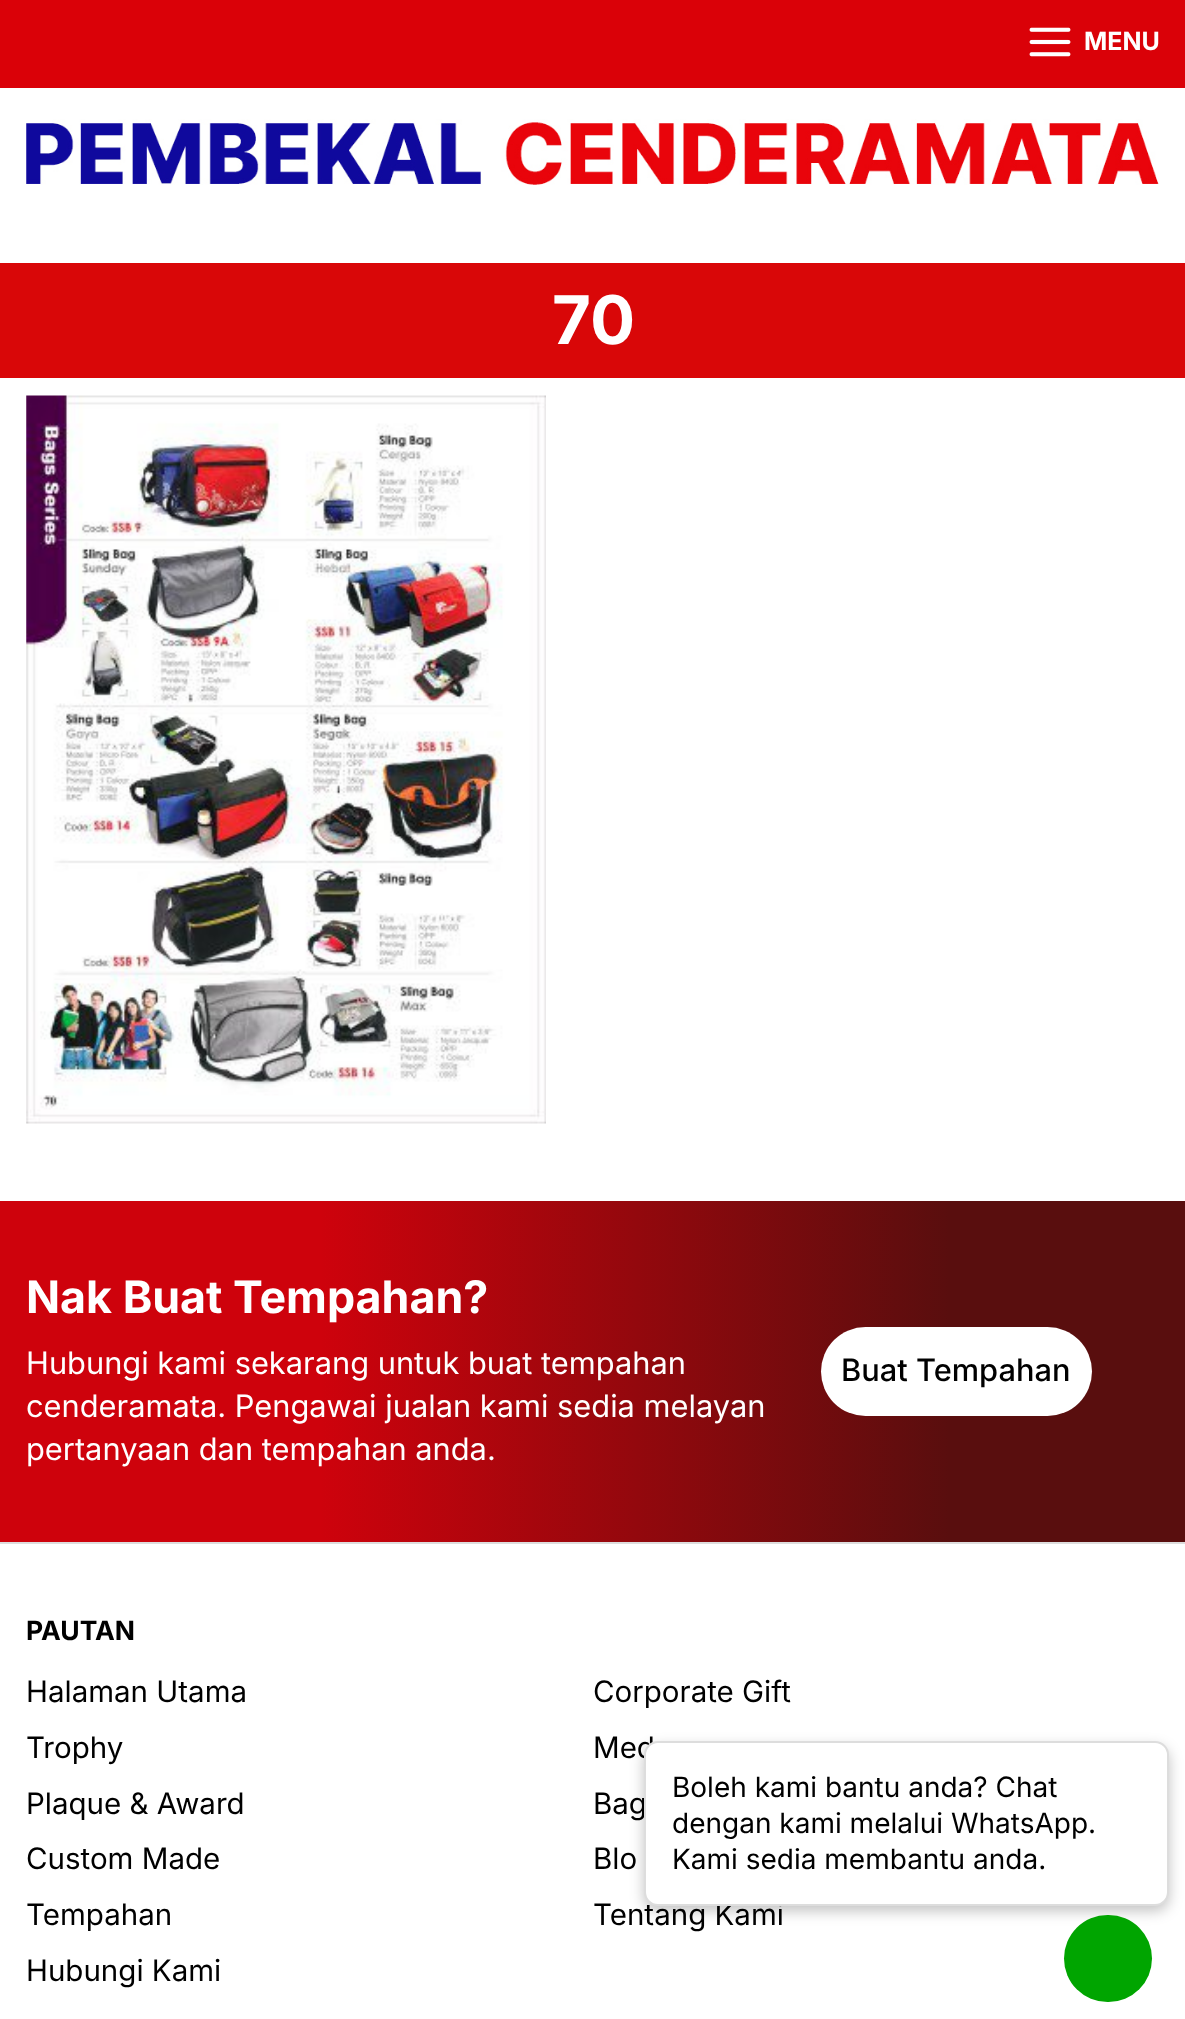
<svg xmlns="http://www.w3.org/2000/svg" width="1185" height="2019" viewBox="0 0 1185 2019">
  <defs>
    <linearGradient id="g1" gradientUnits="userSpaceOnUse" x1="0" y1="1371" x2="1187" y2="1371"><stop offset="0.27" stop-color="#ce020c"/><stop offset="0.8" stop-color="#590e0e"/></linearGradient>
    <filter id="blur1" x="-50%" y="-200%" width="200%" height="500%"><feGaussianBlur stdDeviation="7"/></filter>
  </defs>
  <rect width="100%" height="100%" fill="#ffffff"/>
  <rect x="0" y="0" width="1185" height="88" fill="#da0108"/>
  <image x="1029" y="27" width="42" height="30" href="img1.png"/>
  <text x="1084" y="50" font-family="Inter" font-size="25" font-weight="bold" fill="#ffffff">MENU</text>
  <image x="26" y="119" width="1133" height="66" href="img2.png"/>
  <rect x="0" y="263" width="1185" height="115" fill="#d90708"/>
  <text x="552" y="344" font-family="Inter" font-size="67" font-weight="bold" fill="#ffffff">70</text>
  <image x="26" y="395" width="520" height="729" href="img3.png"/>
  <rect x="0" y="1201" width="1185" height="341" fill="url(#g1)"/>
  <text x="26" y="1313" font-family="Inter" font-size="44.75" font-weight="bold" fill="#ffffff">Nak Buat Tempahan?</text>
  <text x="26" y="1374" font-family="Inter" font-size="30.8" fill="#ffffff">Hubungi kami sekarang untuk buat tempahan</text>
  <text x="26" y="1417" font-family="Inter" font-size="30.8" fill="#ffffff">cenderamata. Pengawai jualan kami sedia melayan</text>
  <text x="26" y="1460" font-family="Inter" font-size="30.8" fill="#ffffff">pertanyaan dan tempahan anda.</text>
  <rect x="821" y="1327" width="271" height="89" rx="44.5" fill="#ffffff"/>
  <text x="841" y="1381" font-family="Inter" font-size="30.8" font-weight="500" fill="#000000">Buat Tempahan</text>
  <rect x="0" y="1542" width="1185" height="2" fill="#dddddd"/>
  <text x="26" y="1640" font-family="Inter" font-size="26.5" font-weight="bold" fill="#000000">PAUTAN</text>
  <text x="26" y="1702" font-family="Inter" font-size="29.5" fill="#000000">Halaman Utama</text>
  <text x="593" y="1702" font-family="Inter" font-size="29.5" fill="#000000">Corporate Gift</text>
  <text x="26" y="1758" font-family="Inter" font-size="29.5" fill="#000000">Trophy</text>
  <text x="593" y="1758" font-family="Inter" font-size="29.5" fill="#000000">Med</text>
  <text x="26" y="1814" font-family="Inter" font-size="29.5" fill="#000000">Plaque &amp; Award</text>
  <text x="593" y="1814" font-family="Inter" font-size="29.5" fill="#000000">Bag</text>
  <text x="26" y="1869" font-family="Inter" font-size="29.5" fill="#000000">Custom Made</text>
  <text x="593" y="1869" font-family="Inter" font-size="29.5" fill="#000000">Blo</text>
  <text x="26" y="1925" font-family="Inter" font-size="29.5" fill="#000000">Tempahan</text>
  <text x="593" y="1925" font-family="Inter" font-size="29.5" fill="#000000">Tentang Kami</text>
  <text x="26" y="1981" font-family="Inter" font-size="29.5" fill="#000000">Hubungi Kami</text>
  <rect x="644" y="1747" width="525" height="164" rx="14" fill="#000000" fill-opacity="0.24" filter="url(#blur1)"/>
  <rect x="645" y="1742" width="523" height="163" rx="13" fill="#ffffff" stroke="#dddddd" stroke-width="2"/>
  <text x="672" y="1797" font-family="Inter" font-size="28" fill="#000000">Boleh kami bantu anda? Chat</text>
  <text x="672" y="1833" font-family="Inter" font-size="28" fill="#000000">dengan kami melalui WhatsApp.</text>
  <text x="672" y="1869" font-family="Inter" font-size="28" fill="#000000">Kami sedia membantu anda.</text>
  <rect x="1064" y="1915" width="88" height="87" rx="43.5" fill="#00a500"/>
</svg>
